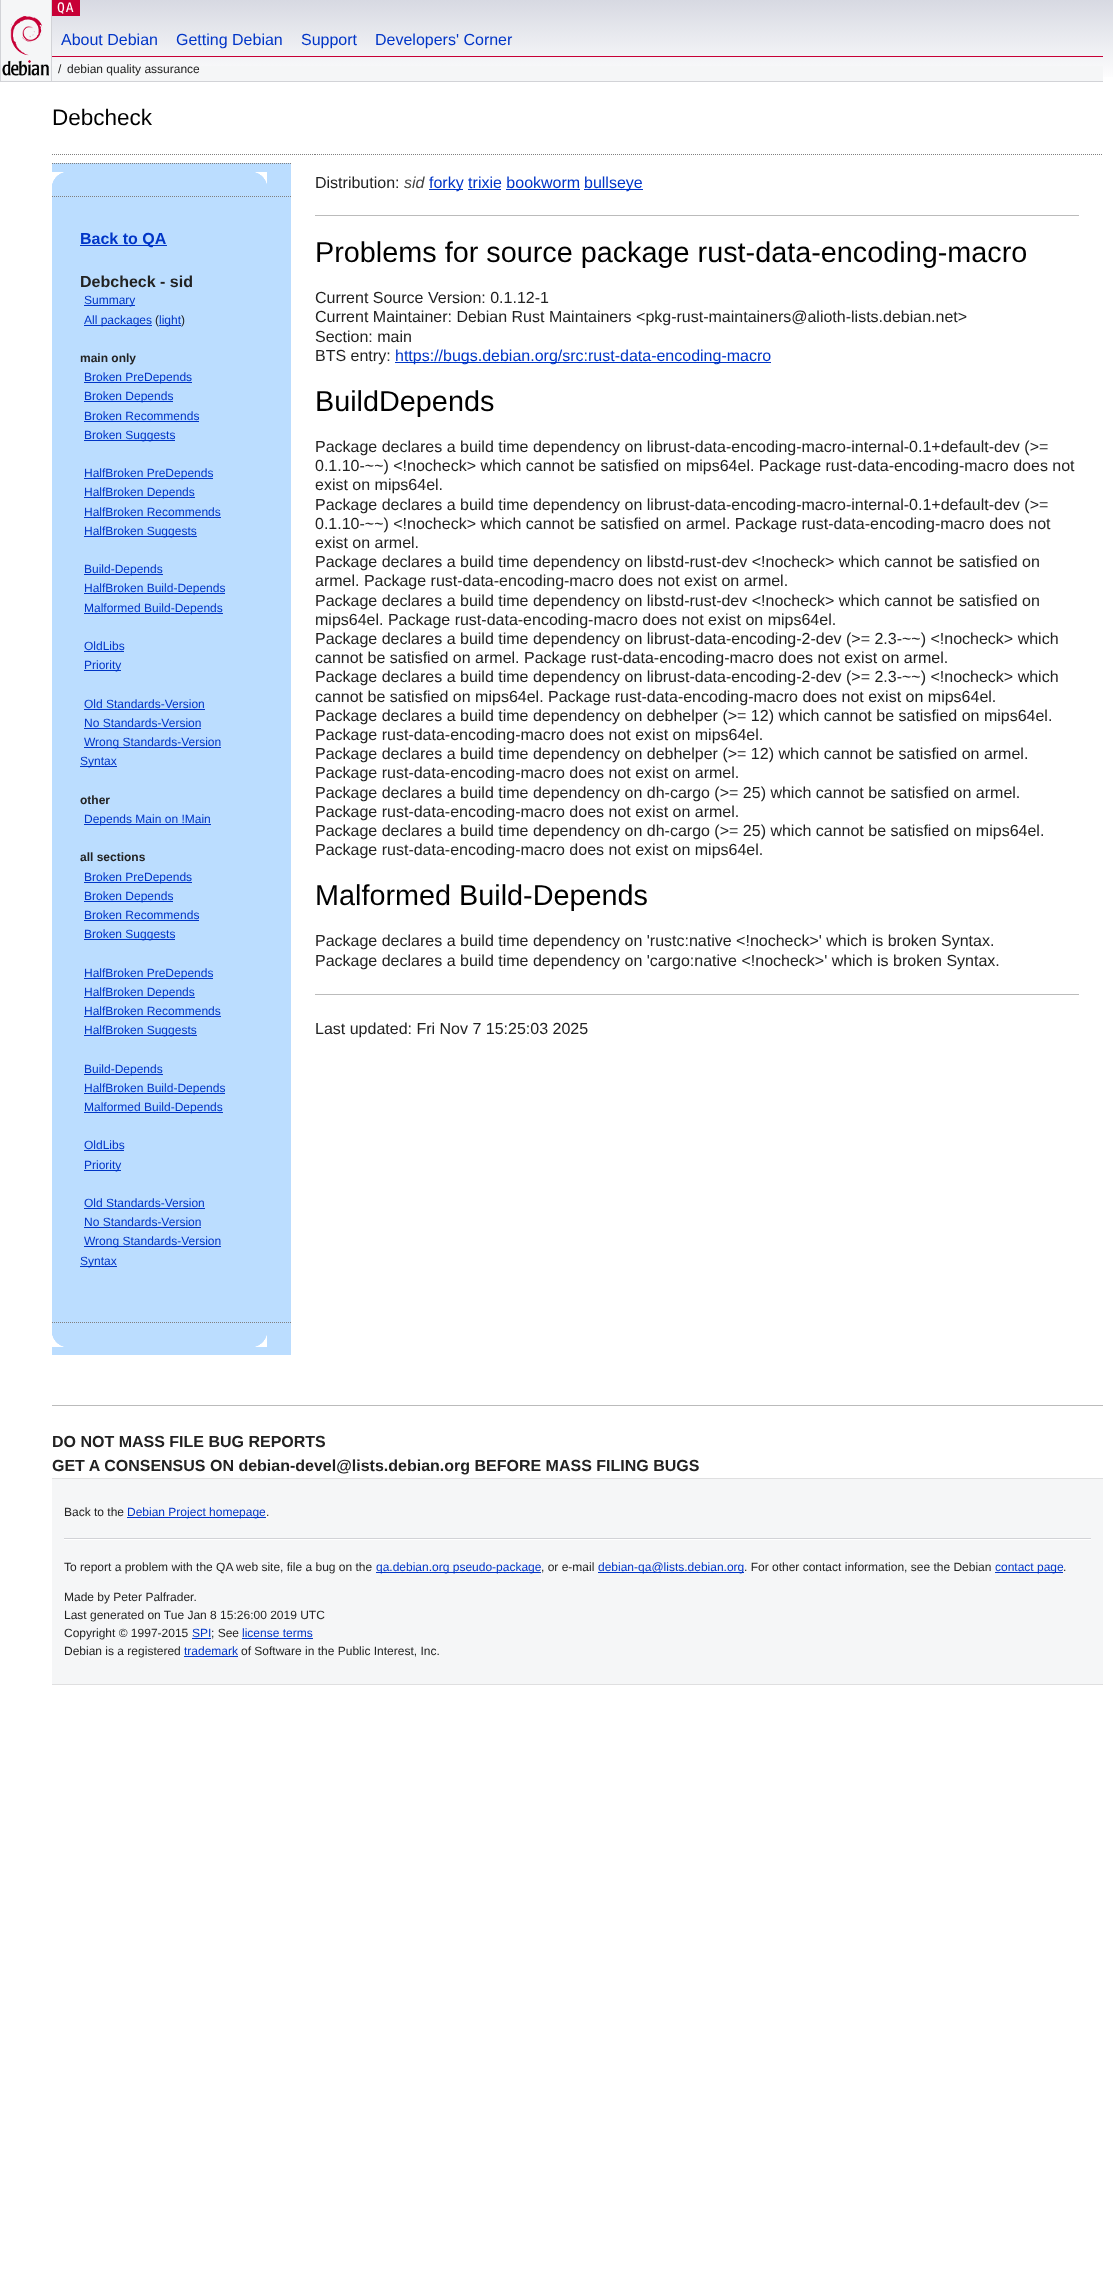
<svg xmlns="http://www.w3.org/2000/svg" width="1113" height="2273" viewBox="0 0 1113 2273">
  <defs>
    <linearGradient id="g1" gradientUnits="userSpaceOnUse" x1="557" y1="0" x2="557" y2="82"><stop offset="0" stop-color="#d7d9e2"/><stop offset="1" stop-color="#ffffff"/></linearGradient>
  </defs>
  <rect width="100%" height="100%" fill="#ffffff"/>
  <rect x="52" y="0" width="1061" height="77" fill="url(#g1)"/>
  <rect x="1" y="0" width="50" height="81" fill="#f5f6f7"/>
  <rect x="51" y="0" width="1" height="82" fill="#d2d3d7"/>
  <rect x="0" y="81" width="52" height="1" fill="#d2d3d7"/>
  <rect x="0" y="0" width="1" height="82" fill="#d2d3d7"/>
  <image x="2" y="16" width="47" height="60" href="img1.png"/>
  <rect x="52" y="0" width="28" height="16" fill="#c70036"/>
  <text x="57" y="12" font-family="DejaVu Sans Mono" font-size="13" letter-spacing="1" fill="#ffffff">QA</text>
  <rect x="52" y="56" width="1051" height="1" fill="#c70036"/>
  <text x="61" y="45" font-family="Liberation Sans" font-size="16" fill="#0035c7">About Debian</text>
  <text x="176" y="45" font-family="Liberation Sans" font-size="16" fill="#0035c7">Getting Debian</text>
  <text x="301" y="45" font-family="Liberation Sans" font-size="16" fill="#0035c7">Support</text>
  <text x="375" y="45" font-family="Liberation Sans" font-size="16" fill="#0035c7">Developers' Corner</text>
  <rect x="52" y="66" width="1051" height="15" fill="#f5f6f7"/>
  <rect x="52" y="81" width="1051" height="1" fill="#d2d3d7"/>
  <text x="58" y="73" font-family="Liberation Sans" font-size="12" fill="#222222">/</text>
  <text x="67" y="73" font-family="Liberation Sans" font-size="12" fill="#222222">debian quality assurance</text>
  <text x="52" y="125" font-family="Liberation Sans" font-size="22.5" fill="#000000">Debcheck</text>
  <path d="M52 154.5H315" fill="none" stroke="#808080" stroke-dasharray="1 1"/>
  <rect x="52" y="163" width="239" height="1192" fill="#bbddff"/>
  <path d="M52 163.5H291" fill="none" stroke="#808080" stroke-dasharray="1 1"/>
  <image x="52" y="172" width="12" height="12" href="img2.png"/>
  <image x="255" y="172" width="12" height="12" href="img3.png"/>
  <path d="M52 196.5H80" fill="none" stroke="#808080" stroke-dasharray="1 1"/>
  <path d="M262 196.5H291" fill="none" stroke="#808080" stroke-dasharray="1 1"/>
  <path d="M80 196.5H262" fill="none" stroke="#808080" stroke-dasharray="1 1"/>
  <rect x="80" y="245" width="87" height="1" fill="#0035c7"/>
  <text x="80" y="244" font-family="Liberation Sans" font-size="16" font-weight="bold" fill="#0035c7">Back to QA</text>
  <text x="80" y="287" font-family="Liberation Sans" font-size="16" font-weight="bold" fill="#222222">Debcheck - sid</text>
  <rect x="84" y="305" width="51" height="1" fill="#0035c7"/>
  <text x="84" y="304" font-family="Liberation Sans" font-size="12" fill="#0035c7">Summary</text>
  <rect x="84" y="325" width="68" height="1" fill="#0035c7"/>
  <text x="84" y="324" font-family="Liberation Sans" font-size="12" fill="#0035c7">All packages</text>
  <text x="155" y="324" font-family="Liberation Sans" font-size="12" fill="#222222">(</text>
  <rect x="159" y="325" width="22" height="1" fill="#0035c7"/>
  <text x="159" y="324" font-family="Liberation Sans" font-size="12" fill="#0035c7">light</text>
  <text x="181" y="324" font-family="Liberation Sans" font-size="12" fill="#222222">)</text>
  <text x="80" y="362" font-family="Liberation Sans" font-size="12" font-weight="bold" fill="#222222">main only</text>
  <rect x="84" y="382" width="108" height="1" fill="#0035c7"/>
  <text x="84" y="381" font-family="Liberation Sans" font-size="12" fill="#0035c7">Broken PreDepends</text>
  <rect x="84" y="401" width="89" height="1" fill="#0035c7"/>
  <text x="84" y="400" font-family="Liberation Sans" font-size="12" fill="#0035c7">Broken Depends</text>
  <text x="84" y="420" font-family="Liberation Sans" font-size="12" fill="#0035c7">Broken Recommends</text>
  <rect x="84" y="421" width="115" height="1" fill="#0035c7"/>
  <rect x="84" y="440" width="91" height="1" fill="#0035c7"/>
  <text x="84" y="439" font-family="Liberation Sans" font-size="12" fill="#0035c7">Broken Suggests</text>
  <rect x="84" y="478" width="129" height="1" fill="#0035c7"/>
  <text x="84" y="477" font-family="Liberation Sans" font-size="12" fill="#0035c7">HalfBroken PreDepends</text>
  <rect x="84" y="497" width="111" height="1" fill="#0035c7"/>
  <text x="84" y="496" font-family="Liberation Sans" font-size="12" fill="#0035c7">HalfBroken Depends</text>
  <text x="84" y="516" font-family="Liberation Sans" font-size="12" fill="#0035c7">HalfBroken Recommends</text>
  <rect x="84" y="517" width="137" height="1" fill="#0035c7"/>
  <rect x="84" y="536" width="113" height="1" fill="#0035c7"/>
  <text x="84" y="535" font-family="Liberation Sans" font-size="12" fill="#0035c7">HalfBroken Suggests</text>
  <rect x="84" y="574" width="79" height="1" fill="#0035c7"/>
  <text x="84" y="573" font-family="Liberation Sans" font-size="12" fill="#0035c7">Build-Depends</text>
  <rect x="84" y="593" width="141" height="1" fill="#0035c7"/>
  <text x="84" y="592" font-family="Liberation Sans" font-size="12" fill="#0035c7">HalfBroken Build-Depends</text>
  <rect x="84" y="613" width="139" height="1" fill="#0035c7"/>
  <text x="84" y="612" font-family="Liberation Sans" font-size="12" fill="#0035c7">Malformed Build-Depends</text>
  <text x="84" y="650" font-family="Liberation Sans" font-size="12" fill="#0035c7">OldLibs</text>
  <rect x="84" y="651" width="40" height="1" fill="#0035c7"/>
  <rect x="84" y="670" width="37" height="1" fill="#0035c7"/>
  <text x="84" y="669" font-family="Liberation Sans" font-size="12" fill="#0035c7">Priority</text>
  <text x="84" y="708" font-family="Liberation Sans" font-size="12" fill="#0035c7">Old Standards-Version</text>
  <rect x="84" y="709" width="121" height="1" fill="#0035c7"/>
  <text x="84" y="727" font-family="Liberation Sans" font-size="12" fill="#0035c7">No Standards-Version</text>
  <rect x="84" y="728" width="117" height="1" fill="#0035c7"/>
  <rect x="84" y="747" width="137" height="1" fill="#0035c7"/>
  <text x="84" y="746" font-family="Liberation Sans" font-size="12" fill="#0035c7">Wrong Standards-Version</text>
  <rect x="80" y="766" width="37" height="1" fill="#0035c7"/>
  <text x="80" y="765" font-family="Liberation Sans" font-size="12" fill="#0035c7">Syntax</text>
  <text x="80" y="804" font-family="Liberation Sans" font-size="12" font-weight="bold" fill="#222222">other</text>
  <rect x="84" y="824" width="127" height="1" fill="#0035c7"/>
  <text x="84" y="823" font-family="Liberation Sans" font-size="12" fill="#0035c7">Depends Main on !Main</text>
  <text x="80" y="861" font-family="Liberation Sans" font-size="12" font-weight="bold" fill="#222222">all sections</text>
  <rect x="84" y="882" width="108" height="1" fill="#0035c7"/>
  <text x="84" y="881" font-family="Liberation Sans" font-size="12" fill="#0035c7">Broken PreDepends</text>
  <rect x="84" y="901" width="89" height="1" fill="#0035c7"/>
  <text x="84" y="900" font-family="Liberation Sans" font-size="12" fill="#0035c7">Broken Depends</text>
  <text x="84" y="919" font-family="Liberation Sans" font-size="12" fill="#0035c7">Broken Recommends</text>
  <rect x="84" y="920" width="115" height="1" fill="#0035c7"/>
  <rect x="84" y="939" width="91" height="1" fill="#0035c7"/>
  <text x="84" y="938" font-family="Liberation Sans" font-size="12" fill="#0035c7">Broken Suggests</text>
  <rect x="84" y="978" width="129" height="1" fill="#0035c7"/>
  <text x="84" y="977" font-family="Liberation Sans" font-size="12" fill="#0035c7">HalfBroken PreDepends</text>
  <rect x="84" y="997" width="111" height="1" fill="#0035c7"/>
  <text x="84" y="996" font-family="Liberation Sans" font-size="12" fill="#0035c7">HalfBroken Depends</text>
  <text x="84" y="1015" font-family="Liberation Sans" font-size="12" fill="#0035c7">HalfBroken Recommends</text>
  <rect x="84" y="1016" width="137" height="1" fill="#0035c7"/>
  <rect x="84" y="1035" width="113" height="1" fill="#0035c7"/>
  <text x="84" y="1034" font-family="Liberation Sans" font-size="12" fill="#0035c7">HalfBroken Suggests</text>
  <rect x="84" y="1074" width="79" height="1" fill="#0035c7"/>
  <text x="84" y="1073" font-family="Liberation Sans" font-size="12" fill="#0035c7">Build-Depends</text>
  <rect x="84" y="1093" width="141" height="1" fill="#0035c7"/>
  <text x="84" y="1092" font-family="Liberation Sans" font-size="12" fill="#0035c7">HalfBroken Build-Depends</text>
  <rect x="84" y="1112" width="139" height="1" fill="#0035c7"/>
  <text x="84" y="1111" font-family="Liberation Sans" font-size="12" fill="#0035c7">Malformed Build-Depends</text>
  <text x="84" y="1149" font-family="Liberation Sans" font-size="12" fill="#0035c7">OldLibs</text>
  <rect x="84" y="1150" width="40" height="1" fill="#0035c7"/>
  <rect x="84" y="1170" width="37" height="1" fill="#0035c7"/>
  <text x="84" y="1169" font-family="Liberation Sans" font-size="12" fill="#0035c7">Priority</text>
  <text x="84" y="1207" font-family="Liberation Sans" font-size="12" fill="#0035c7">Old Standards-Version</text>
  <rect x="84" y="1208" width="121" height="1" fill="#0035c7"/>
  <text x="84" y="1226" font-family="Liberation Sans" font-size="12" fill="#0035c7">No Standards-Version</text>
  <rect x="84" y="1227" width="117" height="1" fill="#0035c7"/>
  <rect x="84" y="1246" width="137" height="1" fill="#0035c7"/>
  <text x="84" y="1245" font-family="Liberation Sans" font-size="12" fill="#0035c7">Wrong Standards-Version</text>
  <rect x="80" y="1266" width="37" height="1" fill="#0035c7"/>
  <text x="80" y="1265" font-family="Liberation Sans" font-size="12" fill="#0035c7">Syntax</text>
  <path d="M52 1322.5H291" fill="none" stroke="#808080" stroke-dasharray="1 1"/>
  <image x="52" y="1335" width="12" height="12" href="img4.png"/>
  <image x="255" y="1335" width="12" height="12" href="img5.png"/>
  <path d="M315 154.5H1103" fill="none" stroke="#808080" stroke-dasharray="1 1"/>
  <text x="315" y="188" font-family="Liberation Sans" font-size="16" fill="#222222">Distribution:</text>
  <text x="404" y="188" font-family="Liberation Sans" font-size="16" font-style="italic" fill="#444444">sid</text>
  <rect x="429" y="189" width="34" height="1" fill="#0035c7"/>
  <text x="429" y="188" font-family="Liberation Sans" font-size="16" fill="#0035c7">forky trixie bookworm</text>
  <rect x="584" y="189" width="59" height="1" fill="#0035c7"/>
  <text x="584" y="188" font-family="Liberation Sans" font-size="16" fill="#0035c7">bullseye</text>
  <rect x="468" y="189" width="33" height="1" fill="#0035c7"/>
  <rect x="506" y="189" width="74" height="1" fill="#0035c7"/>
  <rect x="315" y="215" width="764" height="1" fill="#bbbbbb"/>
  <text x="315" y="262" font-family="Liberation Sans" font-size="28.8" fill="#000000">Problems for source package rust-data-encoding-macro</text>
  <text x="315" y="303" font-family="Liberation Sans" font-size="16" fill="#222222">Current Source Version: 0.1.12-1</text>
  <text x="315" y="322" font-family="Liberation Sans" font-size="16" fill="#222222">Current Maintainer: Debian Rust Maintainers &lt;pkg-rust-maintainers@alioth-lists.debian.net&gt;</text>
  <text x="315" y="342" font-family="Liberation Sans" font-size="16" fill="#222222">Section: main</text>
  <text x="315" y="361" font-family="Liberation Sans" font-size="16" fill="#222222">BTS entry:</text>
  <rect x="395" y="362" width="376" height="1" fill="#0035c7"/>
  <text x="395" y="361" font-family="Liberation Sans" font-size="16" fill="#0035c7">https://bugs.debian.org/src:rust-data-encoding-macro</text>
  <text x="315" y="411" font-family="Liberation Sans" font-size="28.8" fill="#000000">BuildDepends</text>
  <text x="315" y="452" font-family="Liberation Sans" font-size="16" fill="#222222">Package declares a build time dependency on librust-data-encoding-macro-internal-0.1+default-dev (&gt;=</text>
  <text x="315" y="471" font-family="Liberation Sans" font-size="16" fill="#222222">0.1.10-~~) &lt;!nocheck&gt; which cannot be satisfied on mips64el. Package rust-data-encoding-macro does not</text>
  <text x="315" y="490" font-family="Liberation Sans" font-size="16" fill="#222222">exist on mips64el.</text>
  <text x="315" y="510" font-family="Liberation Sans" font-size="16" fill="#222222">Package declares a build time dependency on librust-data-encoding-macro-internal-0.1+default-dev (&gt;=</text>
  <text x="315" y="529" font-family="Liberation Sans" font-size="16" fill="#222222">0.1.10-~~) &lt;!nocheck&gt; which cannot be satisfied on armel. Package rust-data-encoding-macro does not</text>
  <text x="315" y="548" font-family="Liberation Sans" font-size="16" fill="#222222">exist on armel.</text>
  <text x="315" y="567" font-family="Liberation Sans" font-size="16" fill="#222222">Package declares a build time dependency on libstd-rust-dev &lt;!nocheck&gt; which cannot be satisfied on</text>
  <text x="315" y="586" font-family="Liberation Sans" font-size="16" fill="#222222">armel. Package rust-data-encoding-macro does not exist on armel.</text>
  <text x="315" y="606" font-family="Liberation Sans" font-size="16" fill="#222222">Package declares a build time dependency on libstd-rust-dev &lt;!nocheck&gt; which cannot be satisfied on</text>
  <text x="315" y="625" font-family="Liberation Sans" font-size="16" fill="#222222">mips64el. Package rust-data-encoding-macro does not exist on mips64el.</text>
  <text x="315" y="644" font-family="Liberation Sans" font-size="16" fill="#222222">Package declares a build time dependency on librust-data-encoding-2-dev (&gt;= 2.3-~~) &lt;!nocheck&gt; which</text>
  <text x="315" y="663" font-family="Liberation Sans" font-size="16" fill="#222222">cannot be satisfied on armel. Package rust-data-encoding-macro does not exist on armel.</text>
  <text x="315" y="682" font-family="Liberation Sans" font-size="16" fill="#222222">Package declares a build time dependency on librust-data-encoding-2-dev (&gt;= 2.3-~~) &lt;!nocheck&gt; which</text>
  <text x="315" y="702" font-family="Liberation Sans" font-size="16" fill="#222222">cannot be satisfied on mips64el. Package rust-data-encoding-macro does not exist on mips64el.</text>
  <text x="315" y="721" font-family="Liberation Sans" font-size="16" fill="#222222">Package declares a build time dependency on debhelper (&gt;= 12) which cannot be satisfied on mips64el.</text>
  <text x="315" y="740" font-family="Liberation Sans" font-size="16" fill="#222222">Package rust-data-encoding-macro does not exist on mips64el.</text>
  <text x="315" y="759" font-family="Liberation Sans" font-size="16" fill="#222222">Package declares a build time dependency on debhelper (&gt;= 12) which cannot be satisfied on armel.</text>
  <text x="315" y="778" font-family="Liberation Sans" font-size="16" fill="#222222">Package rust-data-encoding-macro does not exist on armel.</text>
  <text x="315" y="798" font-family="Liberation Sans" font-size="16" fill="#222222">Package declares a build time dependency on dh-cargo (&gt;= 25) which cannot be satisfied on armel.</text>
  <text x="315" y="817" font-family="Liberation Sans" font-size="16" fill="#222222">Package rust-data-encoding-macro does not exist on armel.</text>
  <text x="315" y="836" font-family="Liberation Sans" font-size="16" fill="#222222">Package declares a build time dependency on dh-cargo (&gt;= 25) which cannot be satisfied on mips64el.</text>
  <text x="315" y="855" font-family="Liberation Sans" font-size="16" fill="#222222">Package rust-data-encoding-macro does not exist on mips64el.</text>
  <text x="315" y="905" font-family="Liberation Sans" font-size="28.8" fill="#000000">Malformed Build-Depends</text>
  <text x="315" y="946" font-family="Liberation Sans" font-size="16" fill="#222222">Package declares a build time dependency on 'rustc:native &lt;!nocheck&gt;' which is broken Syntax.</text>
  <text x="315" y="966" font-family="Liberation Sans" font-size="16" fill="#222222">Package declares a build time dependency on 'cargo:native &lt;!nocheck&gt;' which is broken Syntax.</text>
  <rect x="315" y="994" width="764" height="1" fill="#bbbbbb"/>
  <text x="315" y="1034" font-family="Liberation Sans" font-size="16" fill="#222222">Last updated: Fri Nov 7 15:25:03 2025</text>
  <rect x="52" y="1405" width="1051" height="1" fill="#bbbbbb"/>
  <text x="52" y="1447" font-family="Liberation Sans" font-size="16" font-weight="bold" fill="#222222">DO NOT MASS FILE BUG REPORTS</text>
  <text x="52" y="1471" font-family="Liberation Sans" font-size="16" font-weight="bold" fill="#222222">GET A CONSENSUS ON debian-devel@lists.debian.org BEFORE MASS FILING BUGS</text>
  <rect x="52" y="1479" width="1051" height="205" fill="#f5f6f7"/>
  <rect x="52" y="1478" width="1051" height="1" fill="#dfdfe0"/>
  <rect x="52" y="1684" width="1051" height="1" fill="#dfdfe0"/>
  <text x="64" y="1516" font-family="Liberation Sans" font-size="12" fill="#222222">Back to the</text>
  <rect x="127" y="1517" width="139" height="1" fill="#0035c7"/>
  <text x="127" y="1516" font-family="Liberation Sans" font-size="12" fill="#0035c7">Debian Project homepage</text>
  <text x="266" y="1516" font-family="Liberation Sans" font-size="12" fill="#222222">.</text>
  <rect x="64" y="1538" width="1027" height="1" fill="#d2d3d7"/>
  <rect x="64" y="1539" width="1027" height="1" fill="#ffffff"/>
  <text x="64" y="1571" font-family="Liberation Sans" font-size="12" fill="#222222">To report a problem with the QA web site, file a bug on the</text>
  <rect x="376" y="1572" width="165" height="1" fill="#0035c7"/>
  <text x="376" y="1571" font-family="Liberation Sans" font-size="12" fill="#0035c7">qa.debian.org pseudo-package</text>
  <text x="541" y="1571" font-family="Liberation Sans" font-size="12" fill="#222222">, or e-mail</text>
  <rect x="598" y="1572" width="146" height="1" fill="#0035c7"/>
  <text x="598" y="1571" font-family="Liberation Sans" font-size="12" fill="#0035c7">debian-qa@lists.debian.org</text>
  <text x="744" y="1571" font-family="Liberation Sans" font-size="12" fill="#222222">. For other contact information, see the Debian</text>
  <rect x="995" y="1572" width="68" height="1" fill="#0035c7"/>
  <text x="995" y="1571" font-family="Liberation Sans" font-size="12" fill="#0035c7">contact page</text>
  <text x="1063" y="1571" font-family="Liberation Sans" font-size="12" fill="#222222">.</text>
  <text x="64" y="1601" font-family="Liberation Sans" font-size="12" fill="#222222">Made by Peter Palfrader.</text>
  <text x="64" y="1619" font-family="Liberation Sans" font-size="12" fill="#222222">Last generated on Tue Jan 8 15:26:00 2019 UTC</text>
  <text x="64" y="1637" font-family="Liberation Sans" font-size="12" fill="#222222">Copyright © 1997-2015</text>
  <text x="192" y="1637" font-family="Liberation Sans" font-size="12" fill="#0035c7">SPI</text>
  <rect x="192" y="1638" width="19" height="1" fill="#0035c7"/>
  <text x="211" y="1637" font-family="Liberation Sans" font-size="12" fill="#222222">; See</text>
  <text x="242" y="1637" font-family="Liberation Sans" font-size="12" fill="#0035c7">license terms</text>
  <rect x="242" y="1638" width="71" height="1" fill="#0035c7"/>
  <text x="64" y="1655" font-family="Liberation Sans" font-size="12" fill="#222222">Debian is a registered</text>
  <text x="184" y="1655" font-family="Liberation Sans" font-size="12" fill="#0035c7">trademark</text>
  <rect x="184" y="1656" width="54" height="1" fill="#0035c7"/>
  <text x="241" y="1655" font-family="Liberation Sans" font-size="12" fill="#222222">of Software in the Public Interest, Inc.</text>
</svg>
